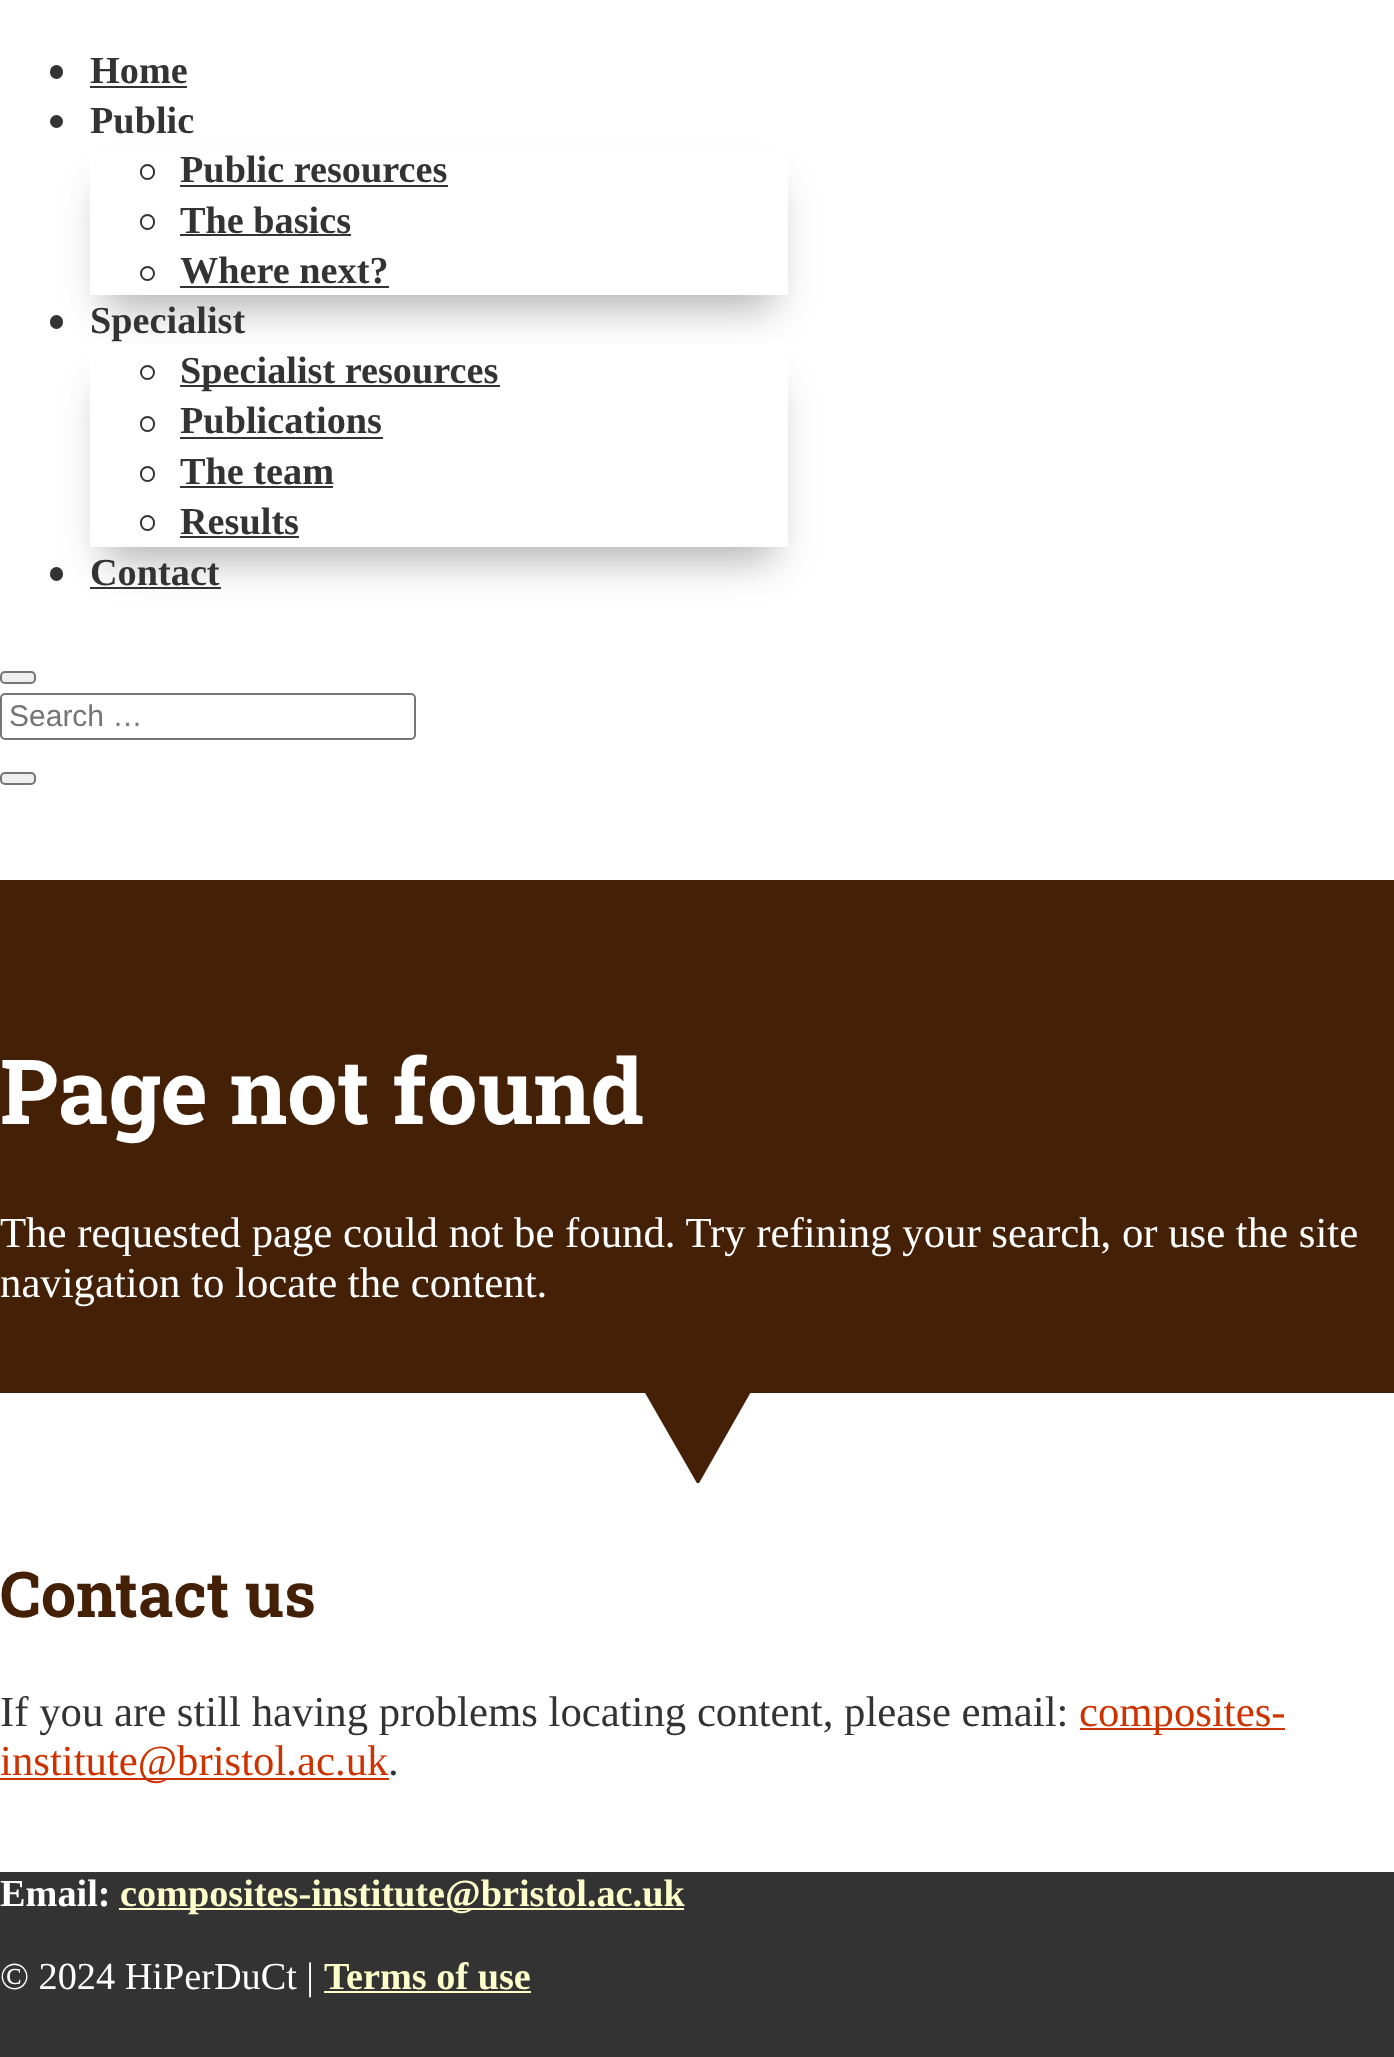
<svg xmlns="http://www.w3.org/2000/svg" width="1394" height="2057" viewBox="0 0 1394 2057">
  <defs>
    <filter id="blur1" x="-50%" y="-200%" width="200%" height="500%"><feGaussianBlur stdDeviation="20"/></filter>
    <clipPath id="clip1"><rect x="0" y="1393" width="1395" height="90"/></clipPath>
  </defs>
  <rect width="100%" height="100%" fill="#ffffff"/>
  <rect x="50" y="65" width="13" height="14" rx="6.5" fill="#333333"/>
  <text x="90" y="83" font-family="Liberation Serif" font-size="38.25" font-weight="bold" fill="#333333">Home</text>
  <rect x="90" y="86" width="97" height="2" fill="#333333"/>
  <rect x="104" y="185" width="670" height="123" fill="#000000" fill-opacity="0.3" filter="url(#blur1)"/>
  <circle cx="56.5" cy="121.5" r="6.5" fill="#333333"/>
  <text x="90" y="133" font-family="Liberation Serif" font-size="38.25" font-weight="bold" fill="#333333">Public</text>
  <rect x="90" y="148" width="698" height="147" fill="#ffffff"/>
  <rect x="141" y="165" width="13" height="14" rx="6.5" fill="none" stroke="#333333" stroke-width="2"/>
  <text x="180" y="182" font-family="Liberation Serif" font-size="38.25" font-weight="bold" fill="#333333">Public resources</text>
  <rect x="180" y="185" width="268" height="2" fill="#333333"/>
  <rect x="141" y="215" width="13" height="14" rx="6.5" fill="none" stroke="#333333" stroke-width="2"/>
  <text x="180" y="233" font-family="Liberation Serif" font-size="38.25" font-weight="bold" fill="#333333">The basics</text>
  <rect x="180" y="234" width="171" height="2" fill="#333333"/>
  <circle cx="147.5" cy="273.5" r="6.5" fill="none" stroke="#333333" stroke-width="2"/>
  <text x="180" y="283" font-family="Liberation Serif" font-size="38.25" font-weight="bold" fill="#333333">Where next?</text>
  <rect x="180" y="286" width="209" height="2" fill="#333333"/>
  <rect x="104" y="385" width="670" height="175" fill="#000000" fill-opacity="0.3" filter="url(#blur1)"/>
  <rect x="50" y="315" width="13" height="14" rx="6.5" fill="#333333"/>
  <text x="90" y="333" font-family="Liberation Serif" font-size="38.25" font-weight="bold" fill="#333333">Specialist</text>
  <rect x="90" y="344" width="698" height="203" fill="#ffffff"/>
  <circle cx="147.5" cy="372.5" r="6.5" fill="none" stroke="#333333" stroke-width="2"/>
  <rect x="180" y="385" width="320" height="2" fill="#333333"/>
  <text x="180" y="383" font-family="Liberation Serif" font-size="38.25" font-weight="bold" fill="#333333">Specialist resources</text>
  <rect x="141" y="417" width="13" height="14" rx="6.5" fill="none" stroke="#333333" stroke-width="2"/>
  <text x="180" y="433" font-family="Liberation Serif" font-size="38.25" font-weight="bold" fill="#333333">Publications</text>
  <rect x="180" y="437" width="203" height="2" fill="#333333"/>
  <rect x="141" y="467" width="13" height="14" rx="6.5" fill="none" stroke="#333333" stroke-width="2"/>
  <text x="180" y="484" font-family="Liberation Serif" font-size="38.25" font-weight="bold" fill="#333333">The team</text>
  <rect x="180" y="486" width="153" height="2" fill="#333333"/>
  <rect x="141" y="516" width="13" height="14" rx="6.5" fill="none" stroke="#333333" stroke-width="2"/>
  <text x="180" y="534" font-family="Liberation Serif" font-size="38.25" font-weight="bold" fill="#333333">Results</text>
  <rect x="180" y="536" width="119" height="2" fill="#333333"/>
  <rect x="50" y="567" width="13" height="14" rx="6.5" fill="#333333"/>
  <text x="90" y="585" font-family="Liberation Serif" font-size="38.25" font-weight="bold" fill="#333333">Contact</text>
  <rect x="90" y="587" width="131" height="2" fill="#333333"/>
  <rect x="1" y="672" width="34" height="11" rx="4" fill="#efefef" stroke="#767676" stroke-width="2"/>
  <rect x="1" y="694" width="414" height="45" rx="4" fill="none" stroke="#767676" stroke-width="2"/>
  <text x="9" y="726" font-family="Liberation Sans" font-size="30" fill="#757575">Search …</text>
  <rect x="1" y="773" width="34" height="11" rx="4" fill="#efefef" stroke="#767676" stroke-width="2"/>
  <rect x="0" y="880" width="1394" height="603" fill="#442007"/>
  <text x="0" y="1124" font-family="Roboto Slab" font-size="90" font-weight="bold" fill="#ffffff">Page not found</text>
  <text x="0" y="1247" font-family="Liberation Serif" font-size="42.75" fill="#ffffff">The requested page could not be found. Try refining your search, or use the site</text>
  <text x="0" y="1297" font-family="Liberation Serif" font-size="42.75" fill="#ffffff">navigation to locate the content.</text>
  <g clip-path="url(#clip1)">
    <path d="M785 1332L698 1485L610 1332H0V1485H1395V1332Z" fill="#ffffff"/>
  </g>
  <text x="0" y="1617" font-family="Roboto Slab" font-size="63" font-weight="bold" fill="#442007">Contact us</text>
  <text x="0" y="1726" font-family="Liberation Serif" font-size="42.75" fill="#333333">If you are still having problems locating content, please email:</text>
  <rect x="1080" y="1728" width="205" height="2" fill="#cc3300"/>
  <text x="1079" y="1726" font-family="Liberation Serif" font-size="42.75" fill="#cc3300">composites-</text>
  <rect x="0" y="1778" width="389" height="2" fill="#cc3300"/>
  <text x="0" y="1775" font-family="Liberation Serif" font-size="42.75" fill="#cc3300">institute@bristol.ac.uk</text>
  <text x="388" y="1775" font-family="Liberation Serif" font-size="42.75" fill="#333333">.</text>
  <rect x="0" y="1872" width="1394" height="185" fill="#333333"/>
  <text x="0" y="1906" font-family="Liberation Serif" font-size="38.25" font-weight="bold" fill="#ffffff">Email:</text>
  <rect x="119" y="1908" width="565" height="2" fill="#ffffcc"/>
  <text x="120" y="1906" font-family="Liberation Serif" font-size="38.25" font-weight="bold" fill="#ffffcc">composites-institute@bristol.ac.uk</text>
  <text x="0" y="1989" font-family="Liberation Serif" font-size="38.25" fill="#ffffff">© 2024 HiPerDuCt |</text>
  <text x="324" y="1989" font-family="Liberation Serif" font-size="38.25" font-weight="bold" fill="#ffffcc">Terms of use</text>
  <rect x="324" y="1991" width="207" height="2" fill="#ffffcc"/>
</svg>
